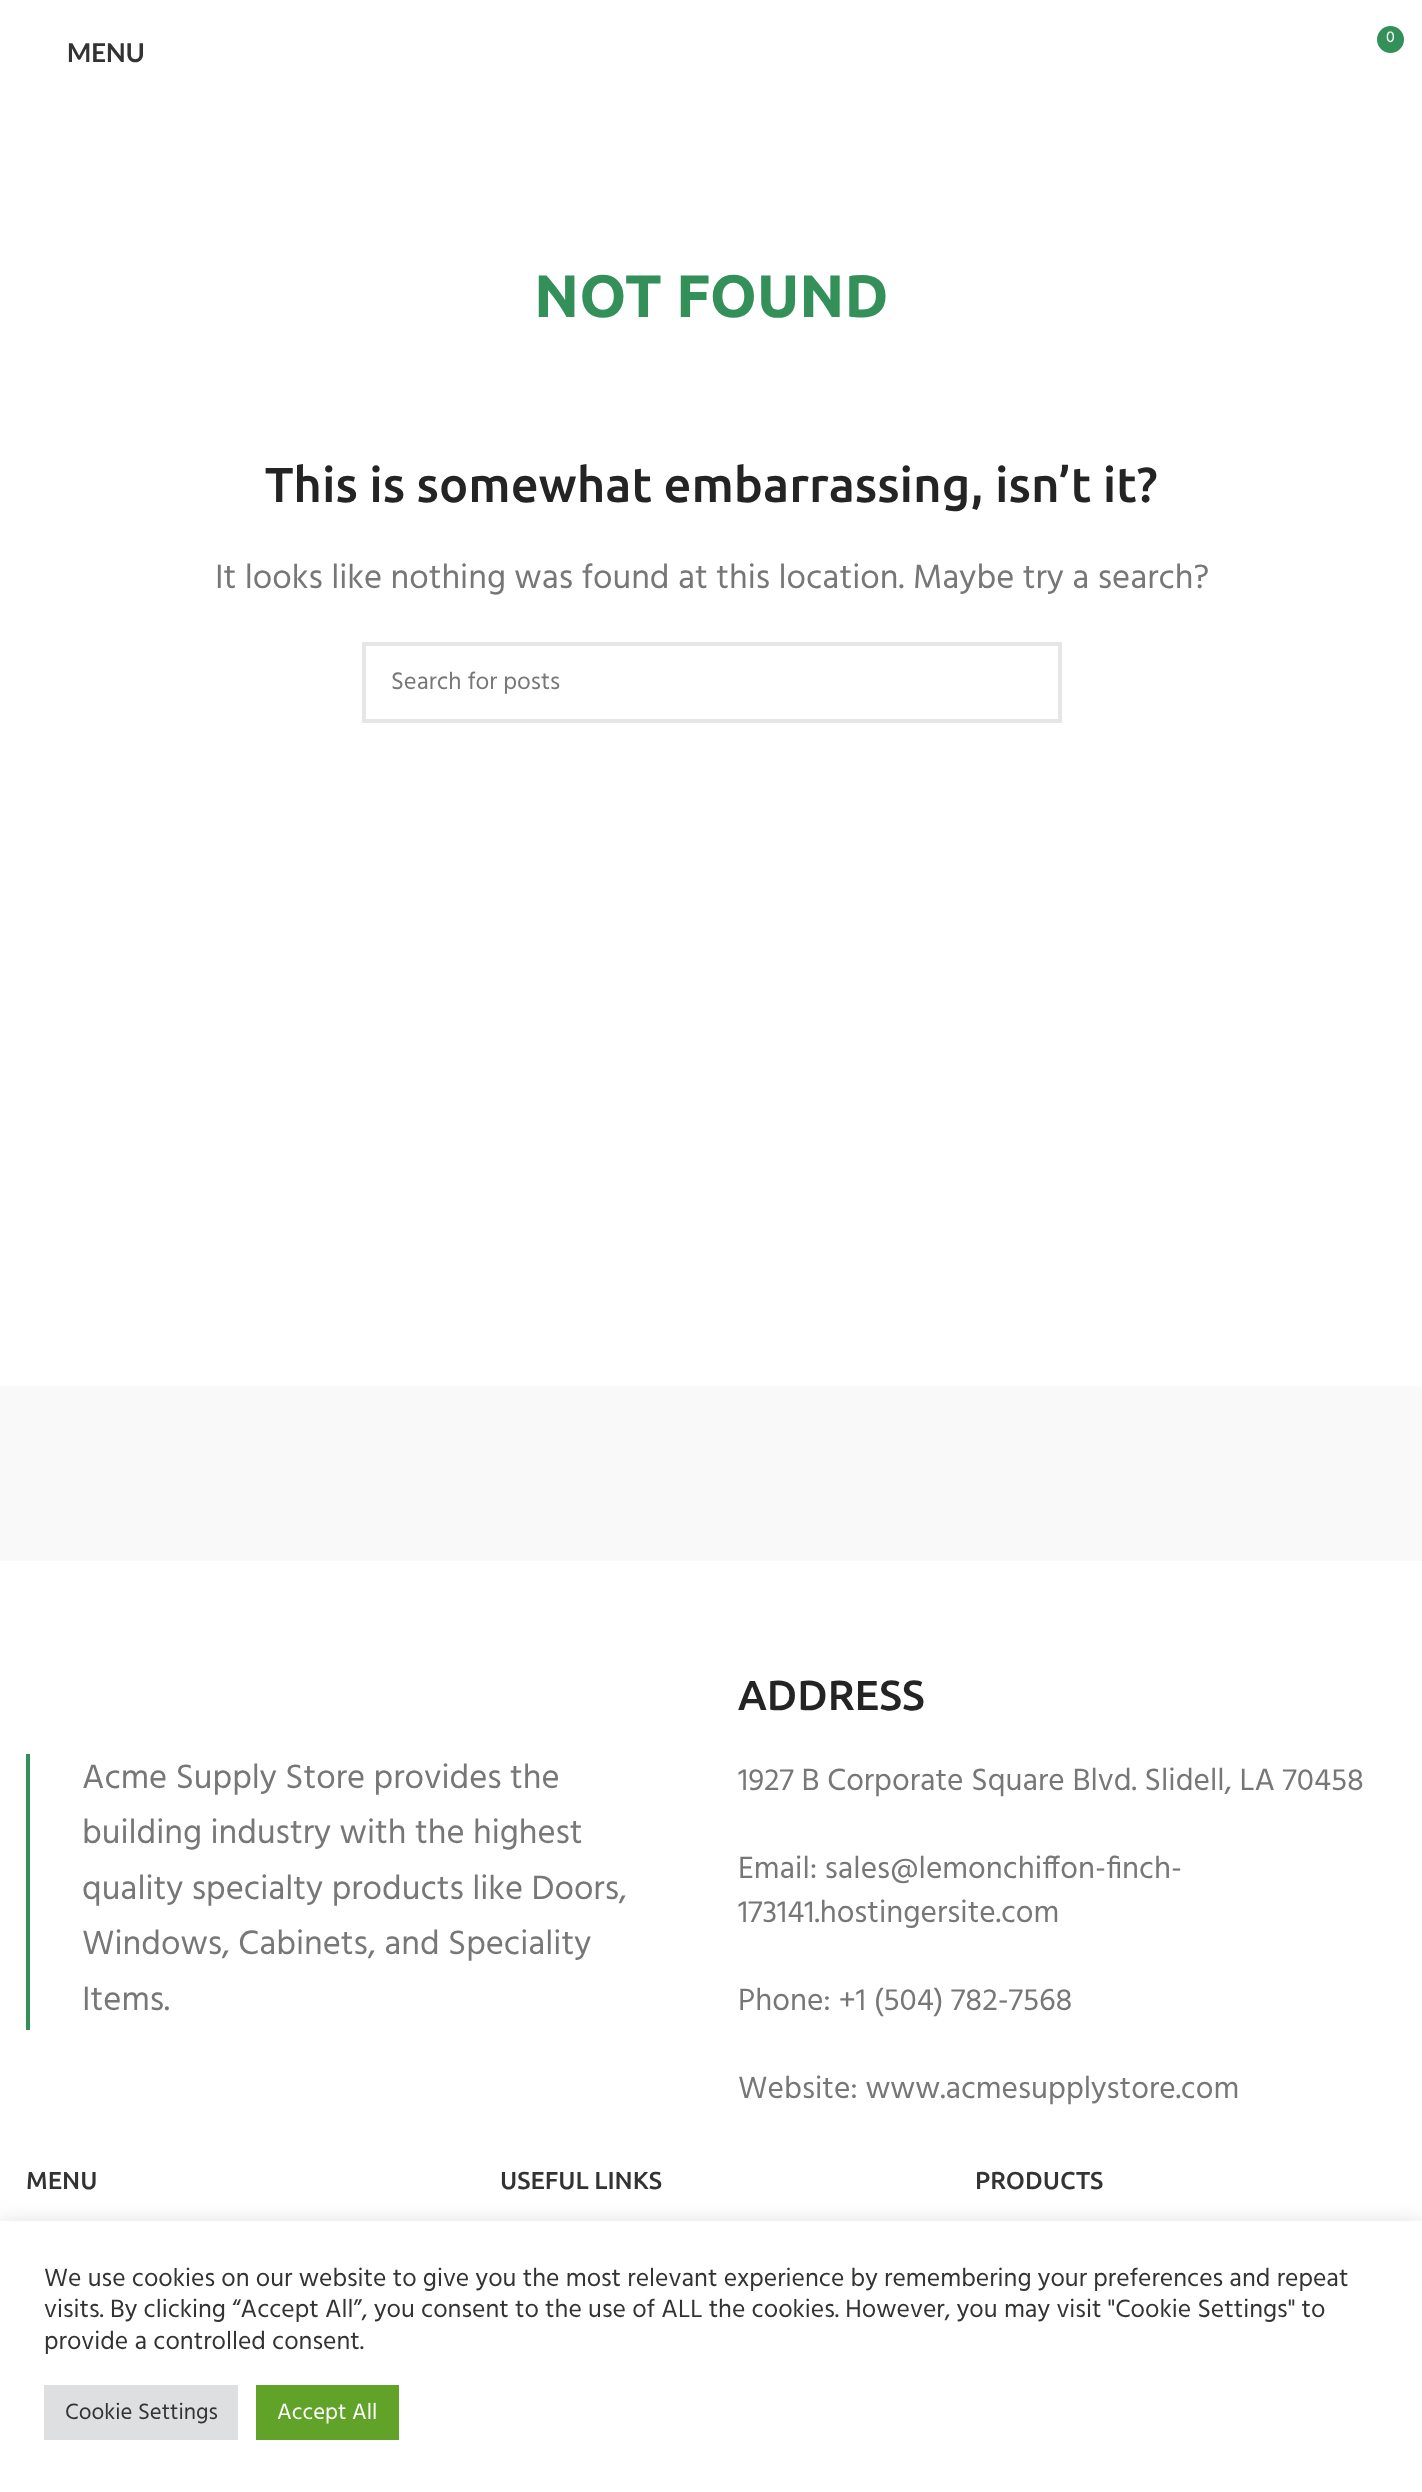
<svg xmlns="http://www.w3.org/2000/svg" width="1422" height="2492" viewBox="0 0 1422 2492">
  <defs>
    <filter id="blur1" x="-50%" y="-200%" width="200%" height="500%"><feGaussianBlur stdDeviation="9"/></filter>
  </defs>
  <rect width="100%" height="100%" fill="#ffffff"/>
  <circle cx="1390.5" cy="39.5" r="13.5" fill="#339059"/>
  <text x="1386" y="42" font-family="Hind" font-size="16" fill="#ffffff">0</text>
  <text x="67" y="62" font-family="Lato" font-size="26" font-weight="bold" fill="#333333">MENU</text>
  <text x="534" y="317" font-family="Ubuntu" font-size="59.75" font-weight="bold" fill="#339059">NOT FOUND</text>
  <text x="265" y="502" font-family="Ubuntu" font-size="49" font-weight="500" fill="#242424">This is somewhat embarrassing, isn’t it?</text>
  <text x="215" y="588" font-family="Hind" font-size="34.65" fill="#777777">It looks like nothing was found at this location. Maybe try a search?</text>
  <rect x="364" y="644" width="696" height="77" fill="none" stroke="#e6e6e6" stroke-width="4"/>
  <text x="391" y="689" font-family="Hind" font-size="24.5" fill="#777777">Search for posts</text>
  <rect x="0" y="1386" width="1422" height="175" fill="#f9f9f9"/>
  <rect x="26" y="1754" width="4" height="276" fill="#339059"/>
  <text x="82" y="1788" font-family="Hind" font-size="34.65" fill="#777777">Acme Supply Store provides the</text>
  <text x="82" y="1843" font-family="Hind" font-size="34.65" fill="#777777">building industry with the highest</text>
  <text x="82" y="1899" font-family="Hind" font-size="34.65" fill="#777777">quality specialty products like Doors,</text>
  <text x="82" y="1954" font-family="Hind" font-size="34.65" fill="#777777">Windows, Cabinets, and Speciality</text>
  <text x="82" y="2010" font-family="Hind" font-size="34.65" fill="#777777">Items.</text>
  <text x="738" y="1710" font-family="Ubuntu" font-size="42" font-weight="500" fill="#242424">ADDRESS</text>
  <text x="738" y="1790" font-family="Hind" font-size="31.5" fill="#777777">1927 B Corporate Square Blvd. Slidell, LA 70458</text>
  <text x="738" y="1878" font-family="Hind" font-size="31.5" fill="#777777">Email: sales@lemonchiffon-finch-</text>
  <text x="738" y="1922" font-family="Hind" font-size="31.5" fill="#777777">173141.hostingersite.com</text>
  <text x="738" y="2010" font-family="Hind" font-size="31.5" fill="#777777">Phone: +1 (504) 782-7568</text>
  <text x="738" y="2098" font-family="Hind" font-size="31.5" fill="#777777">Website: www.acmesupplystore.com</text>
  <text x="26" y="2189" font-family="Ubuntu" font-size="24.5" font-weight="500" fill="#333333">MENU</text>
  <text x="500" y="2189" font-family="Ubuntu" font-size="24.5" font-weight="500" fill="#333333">USEFUL LINKS</text>
  <text x="975" y="2189" font-family="Ubuntu" font-size="24.5" font-weight="500" fill="#333333">PRODUCTS</text>
  <rect x="0" y="2219" width="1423" height="271" fill="#acabab" fill-opacity="0.3" filter="url(#blur1)"/>
  <rect x="0" y="2221" width="1422" height="271" fill="#ffffff"/>
  <text x="44" y="2286" font-family="Hind" font-size="25.67" fill="#333333">We use cookies on our website to give you the most relevant experience by remembering your preferences and repeat</text>
  <text x="44" y="2317" font-family="Hind" font-size="25.67" fill="#333333">visits. By clicking “Accept All”, you consent to the use of ALL the cookies. However, you may visit "Cookie Settings" to</text>
  <text x="44" y="2349" font-family="Hind" font-size="25.67" fill="#333333">provide a controlled consent.</text>
  <rect x="44" y="2385" width="194" height="55" fill="#dedfe0"/>
  <text x="65" y="2419" font-family="Hind" font-size="22.75" fill="#333333">Cookie Settings</text>
  <rect x="256" y="2385" width="143" height="55" fill="#61a229"/>
  <text x="277" y="2419" font-family="Hind" font-size="22.75" fill="#ffffff">Accept All</text>
</svg>
